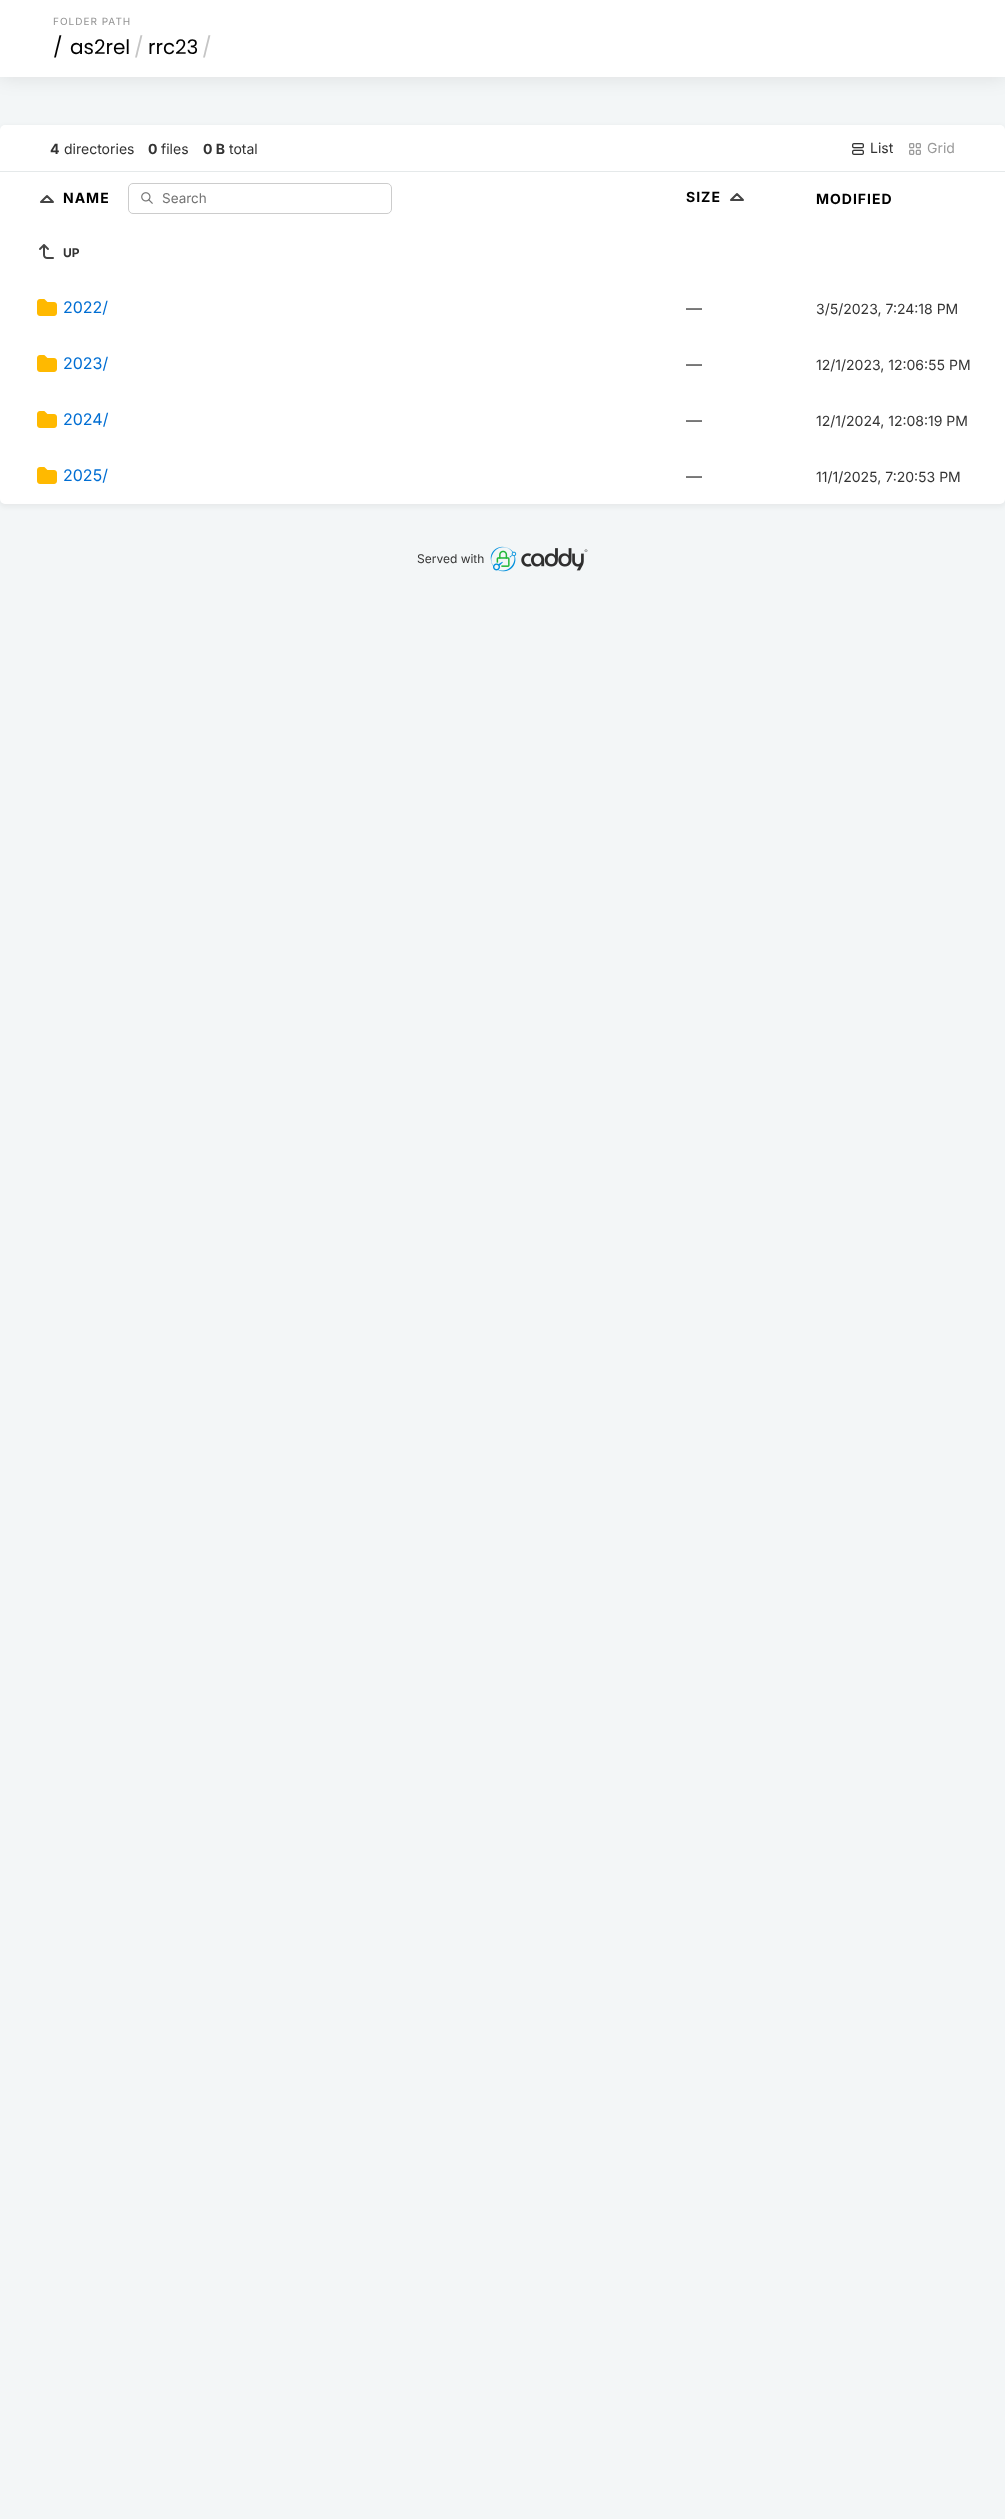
<svg xmlns="http://www.w3.org/2000/svg" width="1005" height="2519" viewBox="0 0 1005 2519">
  <defs>
    <filter id="blur1" x="-50%" y="-200%" width="200%" height="500%"><feGaussianBlur stdDeviation="10"/></filter>
    <filter id="blur2" x="-50%" y="-200%" width="200%" height="500%"><feGaussianBlur stdDeviation="2.5"/></filter>
  </defs>
  <rect width="100%" height="100%" fill="#f3f6f7"/>
  <rect x="0" y="0" width="1005" height="77" fill="#000000" fill-opacity="0.1" filter="url(#blur1)"/>
  <rect x="0" y="0" width="1005" height="77" fill="#ffffff"/>
  <text x="53" y="25" font-family="Inter" font-size="10" letter-spacing="1" fill="#939393">FOLDER PATH</text>
  <text x="53" y="54" font-family="Poppins" font-size="20" fill="#000000">/</text>
  <text x="70" y="54" font-family="Poppins" font-size="20" fill="#000000">as2rel</text>
  <text x="134" y="54" font-family="Poppins" font-size="20" fill="#c5c5c5">/</text>
  <text x="148" y="54" font-family="Poppins" font-size="20" fill="#000000">rrc23</text>
  <text x="202" y="54" font-family="Poppins" font-size="20" fill="#c5c5c5">/</text>
  <rect x="-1" y="126" width="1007" height="381" rx="6" fill="#000000" fill-opacity="0.05" filter="url(#blur2)"/>
  <rect x="0" y="125" width="1005" height="379" rx="5" fill="#ffffff"/>
  <rect x="0" y="171" width="1005" height="1" fill="#e5e9ea"/>
  <text x="50" y="154" font-family="Inter" font-size="14" font-weight="bold" fill="#333333">4</text>
  <text x="64" y="154" font-family="Inter" font-size="14" fill="#333333">directories</text>
  <text x="148" y="154" font-family="Inter" font-size="14" font-weight="bold" fill="#333333">0</text>
  <text x="161" y="154" font-family="Inter" font-size="14" fill="#333333">files</text>
  <text x="203" y="154" font-family="Inter" font-size="14" font-weight="bold" fill="#333333">0 B</text>
  <text x="229" y="154" font-family="Inter" font-size="14" fill="#333333">total</text>
  <image x="852" y="143" width="12" height="12" href="img1.png"/>
  <text x="870" y="153" font-family="Inter" font-size="14" fill="#333333">List</text>
  <image x="909" y="143" width="12" height="12" href="img2.png"/>
  <text x="927" y="153" font-family="Inter" font-size="14" fill="#9a9a9a">Grid</text>
  <path d="M53 202L47 196L41 202H53" fill="none" stroke="#454545" stroke-width="2" stroke-linecap="round" stroke-linejoin="round"/>
  <text x="63" y="203" font-family="Inter" font-size="14" font-weight="bold" letter-spacing="1" fill="#000000">NAME</text>
  <image x="141" y="192" width="12" height="12" href="img3.png"/>
  <rect x="128.5" y="183.5" width="263" height="30" rx="4.5" fill="none" stroke="#cccccc"/>
  <text x="162" y="203" font-family="Inter" font-size="13.5" fill="#757575">Search</text>
  <text x="686" y="202" font-family="Inter" font-size="14" font-weight="bold" letter-spacing="1" fill="#000000">SIZE</text>
  <path d="M743 200L737 194L731 200H743" fill="none" stroke="#454545" stroke-width="2" stroke-linecap="round" stroke-linejoin="round"/>
  <text x="816" y="204" font-family="Inter" font-size="14" font-weight="bold" letter-spacing="1" fill="#000000">MODIFIED</text>
  <image x="39" y="244" width="15" height="15" href="img4.png"/>
  <text x="63" y="257" font-family="Inter" font-size="12" font-weight="bold" fill="#333333">UP</text>
  <image x="37" y="299" width="20" height="17" href="img5.png"/>
  <text x="63" y="313" font-family="Inter" font-size="16" fill="#006ed3">2022/</text>
  <text x="686" y="314" font-family="Inter" font-size="16" fill="#333333">—</text>
  <text x="816" y="314" font-family="Inter" font-size="14" fill="#333333">3/5/2023, 7:24:18 PM</text>
  <image x="37" y="355" width="20" height="17" href="img5.png"/>
  <text x="63" y="369" font-family="Inter" font-size="16" fill="#006ed3">2023/</text>
  <text x="686" y="370" font-family="Inter" font-size="16" fill="#333333">—</text>
  <text x="816" y="370" font-family="Inter" font-size="14" fill="#333333">12/1/2023, 12:06:55 PM</text>
  <image x="37" y="411" width="20" height="17" href="img5.png"/>
  <text x="63" y="425" font-family="Inter" font-size="16" fill="#006ed3">2024/</text>
  <text x="686" y="426" font-family="Inter" font-size="16" fill="#333333">—</text>
  <text x="816" y="426" font-family="Inter" font-size="14" fill="#333333">12/1/2024, 12:08:19 PM</text>
  <image x="37" y="467" width="20" height="17" href="img5.png"/>
  <text x="63" y="481" font-family="Inter" font-size="16" fill="#006ed3">2025/</text>
  <text x="686" y="482" font-family="Inter" font-size="16" fill="#333333">—</text>
  <text x="816" y="482" font-family="Inter" font-size="14" fill="#333333">11/1/2025, 7:20:53 PM</text>
  <text x="417" y="563" font-family="Inter" font-size="12" fill="#333333">Served with</text>
  <image x="490" y="546" width="98" height="26" href="img6.png"/>
</svg>
